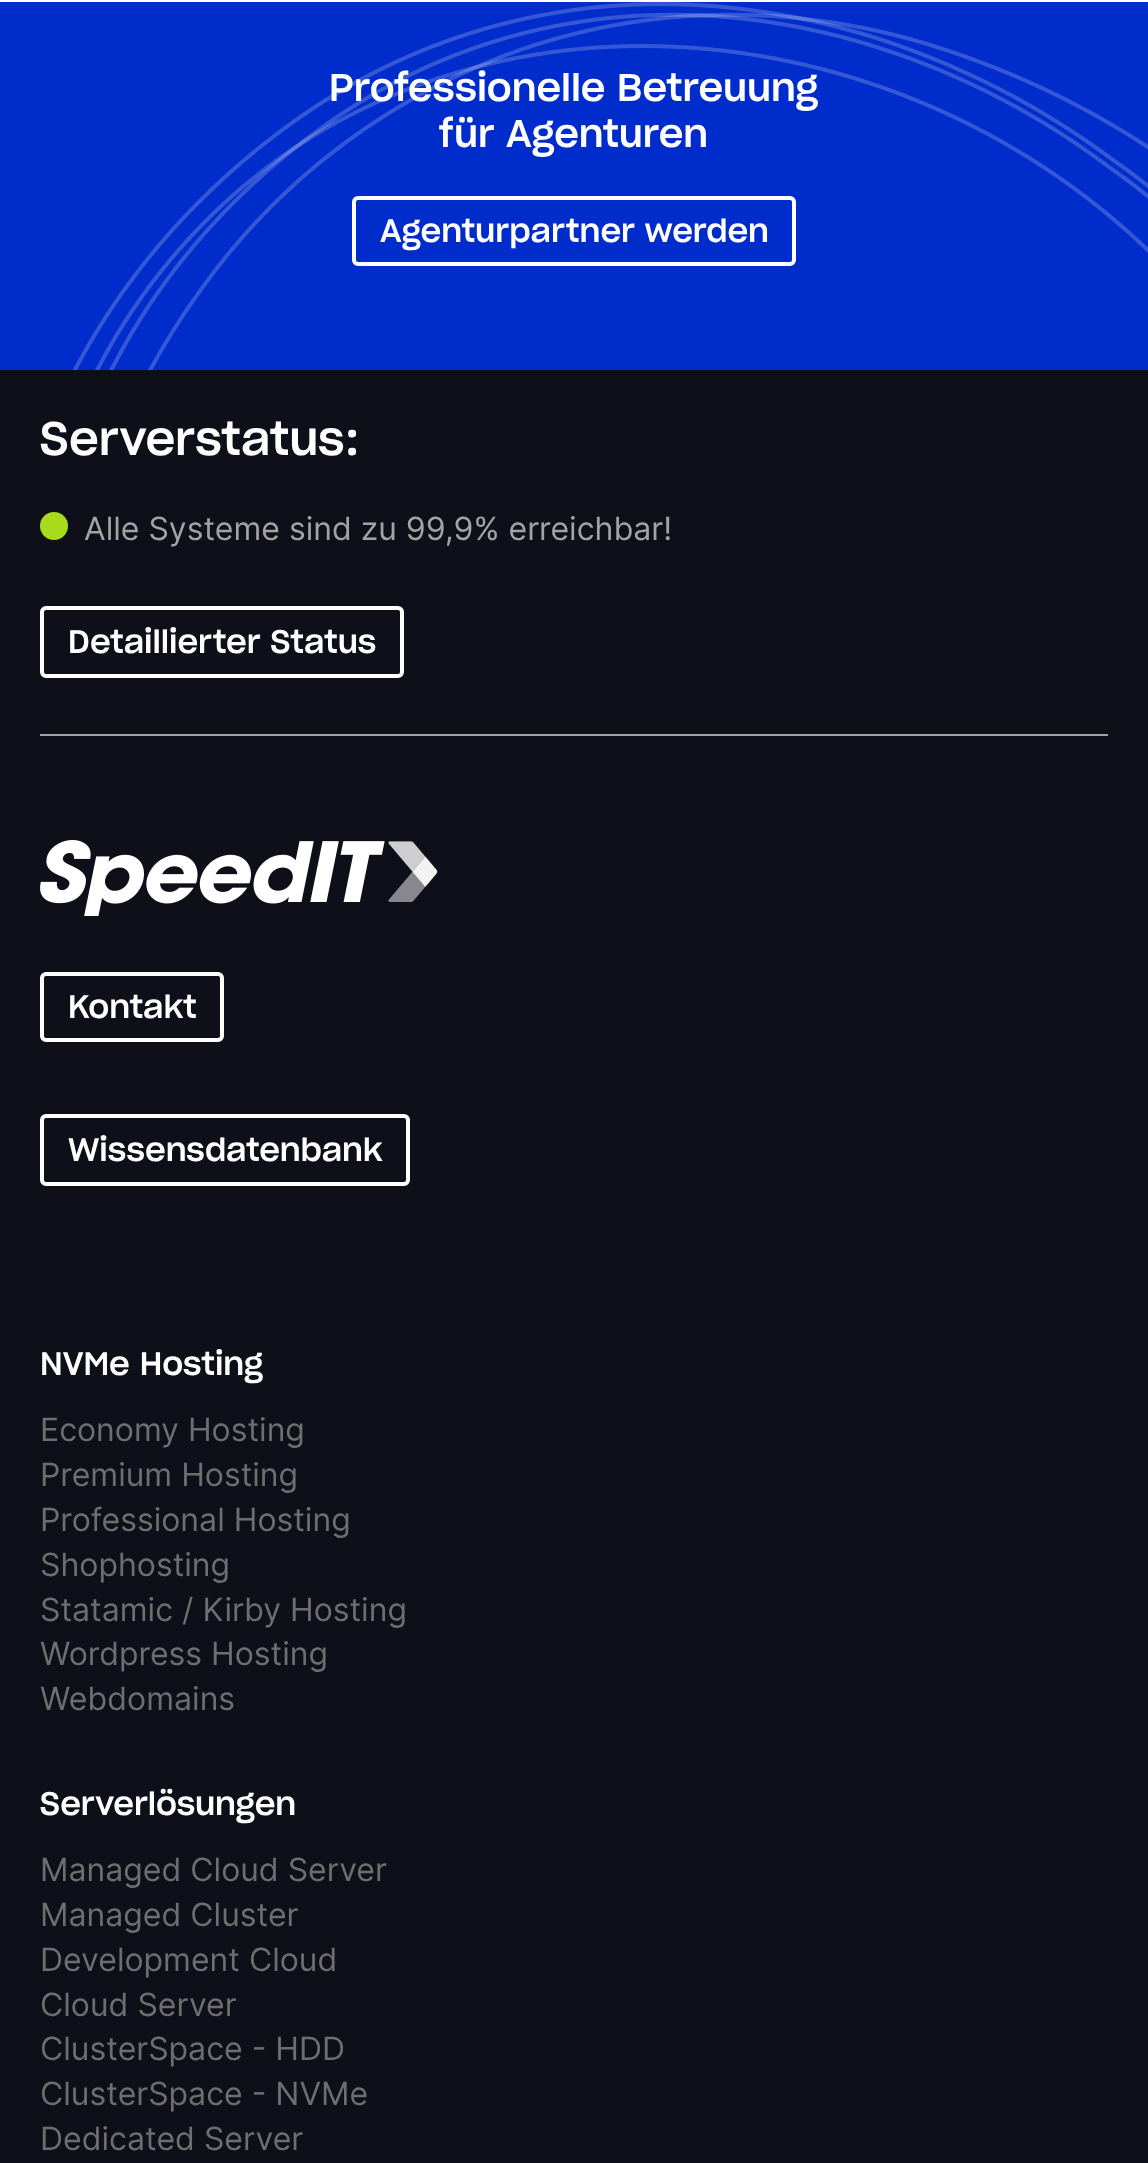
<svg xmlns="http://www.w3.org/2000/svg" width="1148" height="2163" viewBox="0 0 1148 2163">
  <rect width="100%" height="100%" fill="#ffffff"/>
  <rect x="0" y="2" width="1148" height="368" fill="#002ccc"/>
  <image x="73" y="2" width="1075" height="368" href="img1.png"/>
  <text x="329" y="101" font-family="'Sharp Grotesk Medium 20'" font-size="38" font-weight="500" fill="#ffffff">Professionelle Betreuung</text>
  <text x="439" y="147" font-family="'Sharp Grotesk Medium 20'" font-size="38" font-weight="500" fill="#ffffff">für Agenturen</text>
  <rect x="354" y="198" width="440" height="66" rx="4" fill="none" stroke="#ffffff" stroke-width="4"/>
  <text x="380" y="242" font-family="'Sharp Grotesk Medium 20'" font-size="32" font-weight="500" fill="#ffffff">Agenturpartner werden</text>
  <rect x="0" y="370" width="1148" height="1793" fill="#0f0f1a"/>
  <text x="40" y="455" font-family="'Sharp Grotesk Medium 20'" font-size="46" font-weight="500" fill="#ffffff">Serverstatus:</text>
  <circle cx="54" cy="526" r="14" fill="#a7db1b"/>
  <text x="84" y="540" font-family="Inter" font-size="32" fill="#a3a3a3">Alle Systeme sind zu 99,9% erreichbar!</text>
  <rect x="42" y="608" width="360" height="68" rx="4" fill="none" stroke="#ffffff" stroke-width="4"/>
  <text x="68" y="653" font-family="'Sharp Grotesk Medium 20'" font-size="32" font-weight="500" fill="#ffffff">Detaillierter Status</text>
  <rect x="40" y="734" width="1068" height="2" fill="#a3a3a3"/>
  <image x="40" y="840" width="398" height="76" href="img2.png"/>
  <rect x="42" y="974" width="180" height="66" rx="4" fill="none" stroke="#ffffff" stroke-width="4"/>
  <text x="68" y="1018" font-family="'Sharp Grotesk Medium 20'" font-size="32" font-weight="500" fill="#ffffff">Kontakt</text>
  <rect x="42" y="1116" width="366" height="68" rx="4" fill="none" stroke="#ffffff" stroke-width="4"/>
  <text x="68" y="1161" font-family="'Sharp Grotesk Medium 20'" font-size="32" font-weight="500" fill="#ffffff">Wissensdatenbank</text>
  <text x="40" y="1375" font-family="'Sharp Grotesk Medium 20'" font-size="32" font-weight="500" fill="#ffffff">NVMe Hosting</text>
  <text x="40" y="1441" font-family="Inter" font-size="32" fill="#6e6e6e">Economy Hosting</text>
  <text x="40" y="1486" font-family="Inter" font-size="32" fill="#6e6e6e">Premium Hosting</text>
  <text x="40" y="1531" font-family="Inter" font-size="32" fill="#6e6e6e">Professional Hosting</text>
  <text x="40" y="1576" font-family="Inter" font-size="32" fill="#6e6e6e">Shophosting</text>
  <text x="40" y="1621" font-family="Inter" font-size="32" fill="#6e6e6e">Statamic / Kirby Hosting</text>
  <text x="40" y="1665" font-family="Inter" font-size="32" fill="#6e6e6e">Wordpress Hosting</text>
  <text x="40" y="1710" font-family="Inter" font-size="32" fill="#6e6e6e">Webdomains</text>
  <text x="40" y="1815" font-family="'Sharp Grotesk Medium 20'" font-size="32" font-weight="500" fill="#ffffff">Serverlösungen</text>
  <text x="40" y="1881" font-family="Inter" font-size="32" fill="#6e6e6e">Managed Cloud Server</text>
  <text x="40" y="1926" font-family="Inter" font-size="32" fill="#6e6e6e">Managed Cluster</text>
  <text x="40" y="1971" font-family="Inter" font-size="32" fill="#6e6e6e">Development Cloud</text>
  <text x="40" y="2016" font-family="Inter" font-size="32" fill="#6e6e6e">Cloud Server</text>
  <text x="40" y="2060" font-family="Inter" font-size="32" fill="#6e6e6e">ClusterSpace - HDD</text>
  <text x="40" y="2105" font-family="Inter" font-size="32" fill="#6e6e6e">ClusterSpace - NVMe</text>
  <text x="40" y="2150" font-family="Inter" font-size="32" fill="#6e6e6e">Dedicated Server</text>
</svg>
